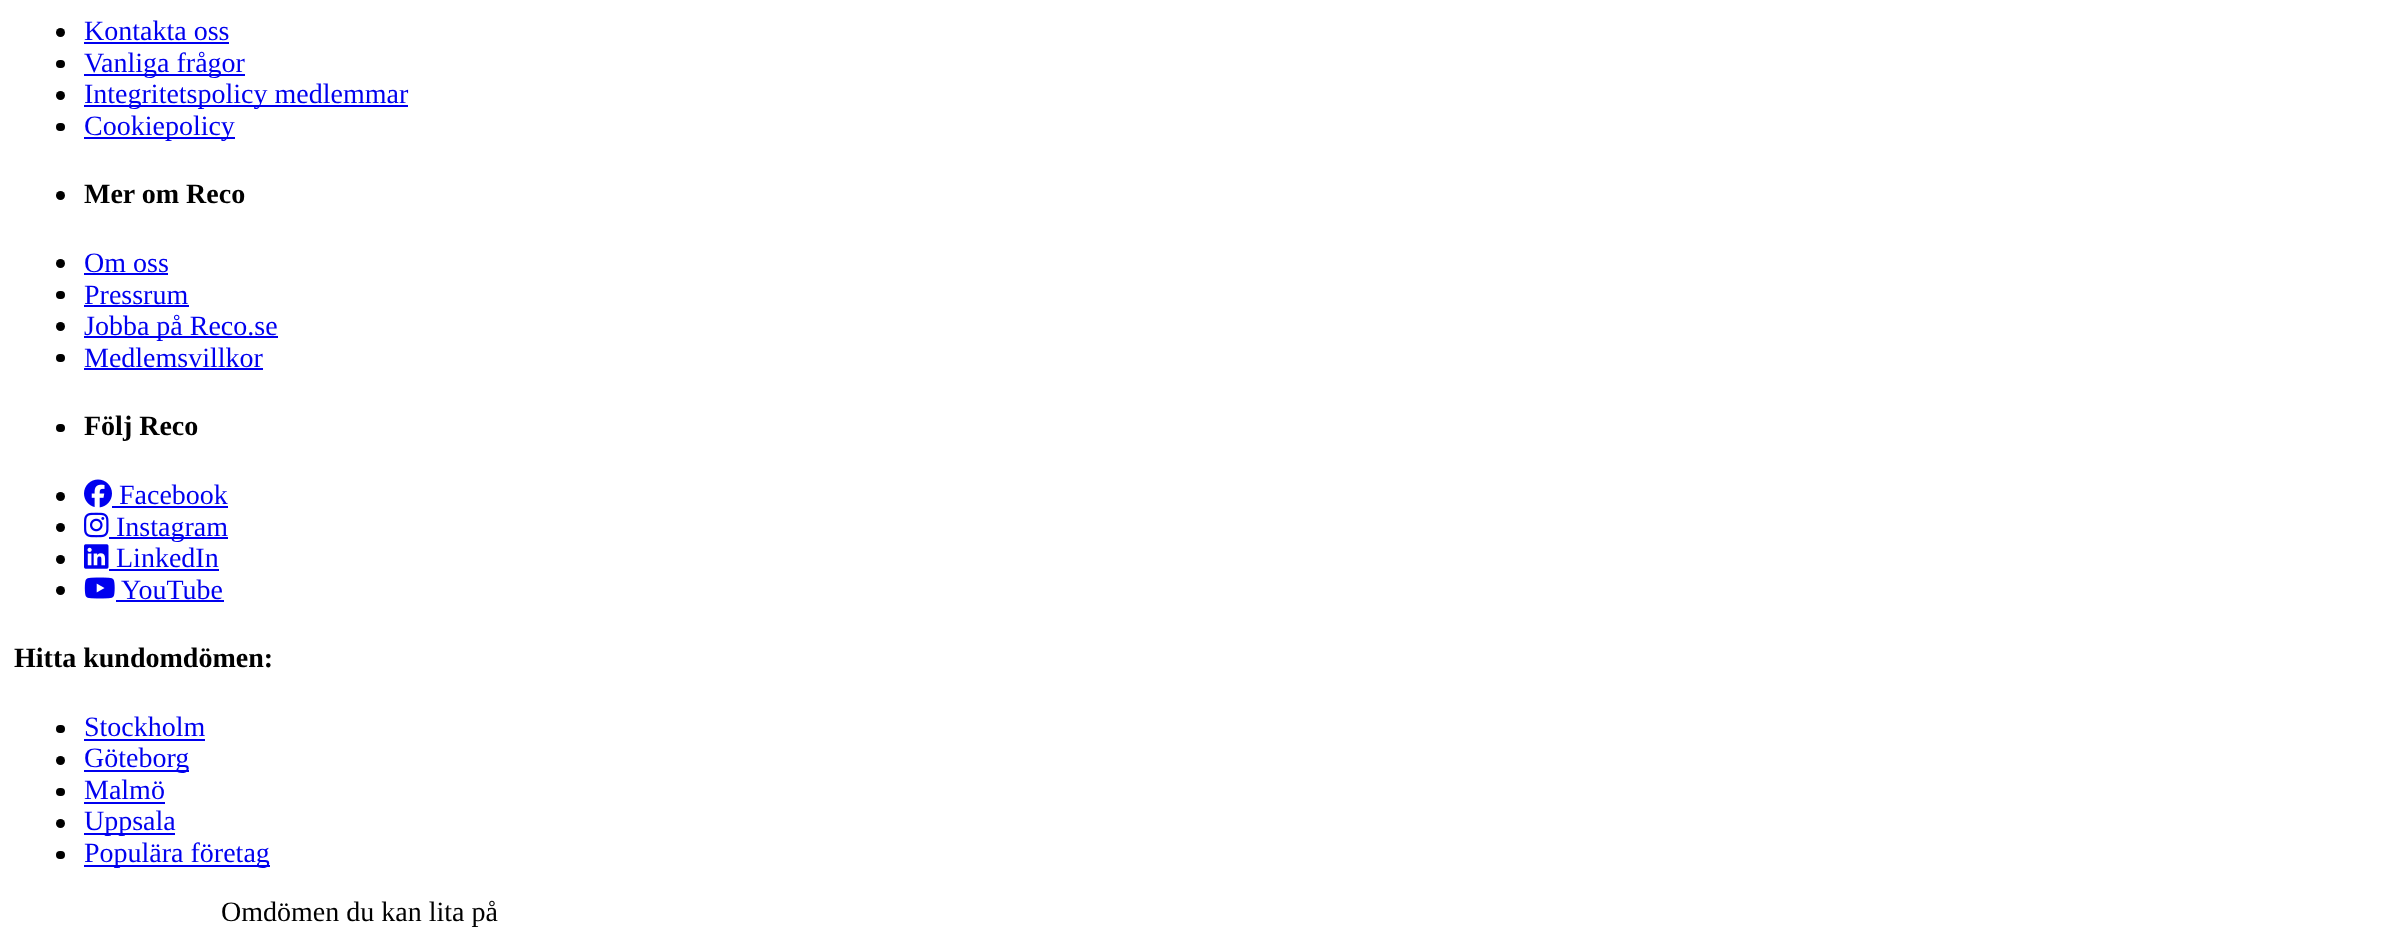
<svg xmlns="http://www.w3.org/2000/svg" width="2385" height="942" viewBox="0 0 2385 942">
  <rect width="100%" height="100%" fill="#ffffff"/>
  <circle cx="60.5" cy="32.5" r="4.5" fill="#000000"/>
  <text x="84" y="40" font-family="Liberation Serif" font-size="28" fill="#0000ee">Kontakta oss</text>
  <rect x="84" y="42" width="145" height="2" fill="#0000ee"/>
  <rect x="56" y="60" width="9" height="8" rx="4" fill="#000000"/>
  <rect x="84" y="74" width="161" height="2" fill="#0000ee"/>
  <text x="84" y="72" font-family="Liberation Serif" font-size="28" fill="#0000ee">Vanliga frågor</text>
  <circle cx="60.5" cy="95.5" r="4.5" fill="#000000"/>
  <rect x="84" y="105" width="324" height="2" fill="#0000ee"/>
  <text x="84" y="103" font-family="Liberation Serif" font-size="28" fill="#0000ee">Integritetspolicy medlemmar</text>
  <rect x="56" y="123" width="9" height="8" rx="4" fill="#000000"/>
  <rect x="84" y="137" width="151" height="2" fill="#0000ee"/>
  <text x="84" y="135" font-family="Liberation Serif" font-size="28" fill="#0000ee">Cookiepolicy</text>
  <circle cx="60.5" cy="195.5" r="4.5" fill="#000000"/>
  <text x="84" y="203" font-family="Liberation Serif" font-size="28" font-weight="bold" fill="#000000">Mer om Reco</text>
  <circle cx="60.5" cy="263.5" r="4.5" fill="#000000"/>
  <text x="84" y="272" font-family="Liberation Serif" font-size="28" fill="#0000ee">Om oss</text>
  <rect x="84" y="273" width="84" height="2" fill="#0000ee"/>
  <rect x="56" y="291" width="9" height="8" rx="4" fill="#000000"/>
  <text x="84" y="304" font-family="Liberation Serif" font-size="28" fill="#0000ee">Pressrum</text>
  <rect x="84" y="305" width="105" height="2" fill="#0000ee"/>
  <circle cx="60.5" cy="326.5" r="4.5" fill="#000000"/>
  <rect x="84" y="336" width="194" height="2" fill="#0000ee"/>
  <text x="84" y="335" font-family="Liberation Serif" font-size="28" fill="#0000ee">Jobba på Reco.se</text>
  <rect x="56" y="354" width="9" height="8" rx="4" fill="#000000"/>
  <text x="84" y="367" font-family="Liberation Serif" font-size="28" fill="#0000ee">Medlemsvillkor</text>
  <rect x="84" y="368" width="179" height="2" fill="#0000ee"/>
  <rect x="56" y="424" width="9" height="8" rx="4" fill="#000000"/>
  <text x="84" y="435" font-family="Liberation Serif" font-size="28" font-weight="bold" fill="#000000">Följ Reco</text>
  <circle cx="60.5" cy="496.5" r="4.5" fill="#000000"/>
  <image x="84" y="479" width="28" height="29" href="img1.png"/>
  <text x="119" y="504" font-family="Liberation Serif" font-size="28" fill="#0000ee">Facebook</text>
  <rect x="112" y="506" width="116" height="2" fill="#0000ee"/>
  <circle cx="60.5" cy="527.5" r="4.5" fill="#000000"/>
  <image x="84" y="512" width="25" height="26" href="img2.png"/>
  <rect x="109" y="537" width="119" height="2" fill="#0000ee"/>
  <text x="116" y="536" font-family="Liberation Serif" font-size="28" fill="#0000ee">Instagram</text>
  <circle cx="60.5" cy="559.5" r="4.5" fill="#000000"/>
  <image x="84" y="544" width="25" height="25" href="img3.png"/>
  <text x="116" y="567" font-family="Liberation Serif" font-size="28" fill="#0000ee">LinkedIn</text>
  <rect x="109" y="569" width="110" height="2" fill="#0000ee"/>
  <circle cx="60.5" cy="590.5" r="4.5" fill="#000000"/>
  <image x="84" y="577" width="31" height="22" href="img4.png"/>
  <text x="121" y="599" font-family="Liberation Serif" font-size="28" fill="#0000ee">YouTube</text>
  <rect x="116" y="600" width="108" height="2" fill="#0000ee"/>
  <text x="14" y="667" font-family="Liberation Serif" font-size="28" font-weight="bold" fill="#000000">Hitta kundomdömen:</text>
  <rect x="56" y="725" width="9" height="8" rx="4" fill="#000000"/>
  <text x="84" y="736" font-family="Liberation Serif" font-size="28" fill="#0000ee">Stockholm</text>
  <rect x="84" y="739" width="121" height="2" fill="#0000ee"/>
  <circle cx="60.5" cy="760.5" r="4.5" fill="#000000"/>
  <rect x="84" y="770" width="105" height="2" fill="#0000ee"/>
  <text x="84" y="767" font-family="Liberation Serif" font-size="28" fill="#0000ee">Göteborg</text>
  <rect x="56" y="788" width="9" height="8" rx="4" fill="#000000"/>
  <text x="84" y="799" font-family="Liberation Serif" font-size="28" fill="#0000ee">Malmö</text>
  <rect x="84" y="802" width="81" height="2" fill="#0000ee"/>
  <circle cx="60.5" cy="823.5" r="4.5" fill="#000000"/>
  <rect x="84" y="833" width="91" height="2" fill="#0000ee"/>
  <text x="84" y="830" font-family="Liberation Serif" font-size="28" fill="#0000ee">Uppsala</text>
  <rect x="56" y="851" width="9" height="8" rx="4" fill="#000000"/>
  <rect x="84" y="865" width="186" height="2" fill="#0000ee"/>
  <text x="84" y="862" font-family="Liberation Serif" font-size="28" fill="#0000ee">Populära företag</text>
  <text x="221" y="921" font-family="Liberation Serif" font-size="28" fill="#000000">Omdömen du kan lita på</text>
</svg>
